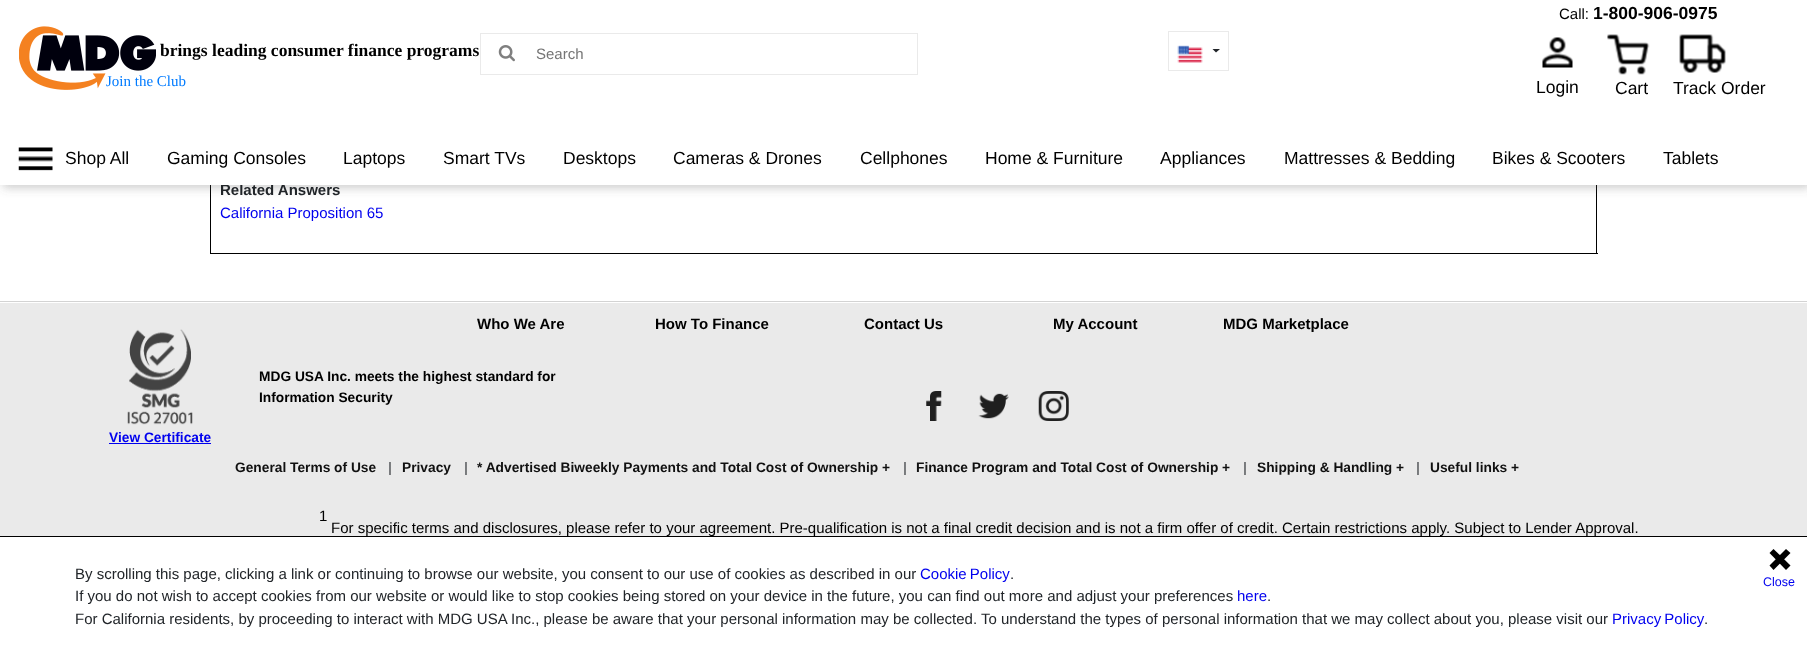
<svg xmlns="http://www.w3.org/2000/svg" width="1807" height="654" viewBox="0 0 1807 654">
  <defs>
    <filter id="blur1" x="-50%" y="-200%" width="200%" height="500%"><feGaussianBlur stdDeviation="5"/></filter>
  </defs>
  <rect width="100%" height="100%" fill="#ffffff"/>
  <rect x="1596" y="185" width="1" height="69" fill="#000000"/>
  <rect x="210" y="253" width="1388" height="1" fill="#000000"/>
  <rect x="210" y="185" width="1" height="69" fill="#000000"/>
  <rect x="3" y="3" width="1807" height="185" fill="#585858" fill-opacity="0.3" filter="url(#blur1)"/>
  <text x="220" y="195" font-family="Liberation Sans" font-size="15" font-weight="bold" fill="#212529">Related Answers</text>
  <rect x="0" y="0" width="1807" height="185" fill="#ffffff"/>
  <text x="1559" y="19" font-family="Liberation Sans" font-size="15" fill="#000000">Call:</text>
  <text x="1593" y="19" font-family="Liberation Sans" font-size="17.5" font-weight="bold" fill="#000000">1-800-906-0975</text>
  <image x="19" y="26" width="137" height="64" href="img1.png"/>
  <text x="160" y="56" font-family="Liberation Serif" font-size="17.5" font-weight="bold" fill="#000000">brings leading consumer finance programs</text>
  <text x="106" y="86" font-family="Liberation Serif" font-size="15" fill="#007bff">Join the Club</text>
  <rect x="480.5" y="33.5" width="437" height="41" fill="none" stroke="#eaeaea"/>
  <image x="498" y="45" width="17" height="17" href="img2.png"/>
  <text x="536" y="59" font-family="Liberation Sans" font-size="15" fill="#757575">Search</text>
  <rect x="1168.5" y="31.5" width="60" height="39" fill="none" stroke="#eaeaea"/>
  <image x="1177" y="45" width="26" height="18" href="img3.png"/>
  <path d="M1212.5 49H1220L1216 52.5Z" fill="#212529"/>
  <image x="1542" y="37" width="31" height="31" href="img4.png"/>
  <text x="1536" y="93" font-family="Liberation Sans" font-size="17.5" fill="#000000">Login</text>
  <image x="1607" y="34" width="43" height="41" href="img5.png"/>
  <text x="1615" y="94" font-family="Liberation Sans" font-size="17.5" fill="#000000">Cart</text>
  <image x="1679" y="34" width="47" height="39" href="img6.png"/>
  <text x="1673" y="94" font-family="Liberation Sans" font-size="17.5" fill="#000000">Track Order</text>
  <image x="18" y="147" width="35" height="24" href="img7.png"/>
  <text x="65" y="164" font-family="Liberation Sans" font-size="17.5" fill="#000000">Shop All</text>
  <text x="167" y="164" font-family="Liberation Sans" font-size="17.5" fill="#000000">Gaming Consoles</text>
  <text x="343" y="164" font-family="Liberation Sans" font-size="17.5" fill="#000000">Laptops</text>
  <text x="443" y="164" font-family="Liberation Sans" font-size="17.5" fill="#000000">Smart TVs</text>
  <text x="563" y="164" font-family="Liberation Sans" font-size="17.5" fill="#000000">Desktops</text>
  <text x="673" y="164" font-family="Liberation Sans" font-size="17.5" fill="#000000">Cameras &amp; Drones</text>
  <text x="860" y="164" font-family="Liberation Sans" font-size="17.5" fill="#000000">Cellphones</text>
  <text x="985" y="164" font-family="Liberation Sans" font-size="17.5" fill="#000000">Home &amp; Furniture</text>
  <text x="1160" y="164" font-family="Liberation Sans" font-size="17.5" fill="#000000">Appliances</text>
  <text x="1284" y="164" font-family="Liberation Sans" font-size="17.5" fill="#000000">Mattresses &amp; Bedding</text>
  <text x="1492" y="164" font-family="Liberation Sans" font-size="17.5" fill="#000000">Bikes &amp; Scooters</text>
  <text x="1663" y="164" font-family="Liberation Sans" font-size="17.5" fill="#000000">Tablets</text>
  <text x="220" y="218" font-family="Liberation Sans" font-size="15" fill="#0000ee">California Proposition 65</text>
  <rect x="0" y="301" width="1807" height="1" fill="#d3d3d3"/>
  <rect x="0" y="303" width="1807" height="233" fill="#eaeaea"/>
  <text x="477" y="329" font-family="Liberation Sans" font-size="15" font-weight="bold" fill="#000000">Who We Are</text>
  <text x="655" y="329" font-family="Liberation Sans" font-size="15" font-weight="bold" fill="#000000">How To Finance</text>
  <text x="864" y="329" font-family="Liberation Sans" font-size="15" font-weight="bold" fill="#000000">Contact Us</text>
  <text x="1053" y="329" font-family="Liberation Sans" font-size="15" font-weight="bold" fill="#000000">My Account</text>
  <text x="1223" y="329" font-family="Liberation Sans" font-size="15" font-weight="bold" fill="#000000">MDG Marketplace</text>
  <text x="259" y="381" font-family="Liberation Sans" font-size="13.75" font-weight="bold" fill="#000000">MDG USA Inc. meets the highest standard for</text>
  <text x="259" y="402" font-family="Liberation Sans" font-size="13.75" font-weight="bold" fill="#000000">Information Security</text>
  <image x="127" y="329" width="66" height="96" href="img8.png"/>
  <text x="109" y="442" font-family="Liberation Sans" font-size="13.75" font-weight="bold" fill="#0000ee">View Certificate</text>
  <rect x="109" y="443" width="102" height="1" fill="#0000ee"/>
  <image x="926" y="391" width="16" height="30" href="img9.png"/>
  <image x="978" y="393" width="31" height="26" href="img10.png"/>
  <image x="1038" y="391" width="31" height="30" href="img11.png"/>
  <text x="235" y="472" font-family="Liberation Sans" font-size="13.75" font-weight="bold" fill="#101010">General Terms of Use</text>
  <text x="388" y="472" font-family="Liberation Sans" font-size="13.75" font-style="italic" fill="#212529">|</text>
  <text x="402" y="472" font-family="Liberation Sans" font-size="13.75" font-weight="bold" fill="#101010">Privacy</text>
  <text x="464" y="472" font-family="Liberation Sans" font-size="13.75" font-style="italic" fill="#212529">|</text>
  <text x="477" y="472" font-family="Liberation Sans" font-size="13.75" font-weight="bold" fill="#101010">* Advertised Biweekly Payments and Total Cost of Ownership +</text>
  <text x="903" y="472" font-family="Liberation Sans" font-size="13.75" font-style="italic" fill="#212529">|</text>
  <text x="916" y="472" font-family="Liberation Sans" font-size="13.75" font-weight="bold" fill="#101010">Finance Program and Total Cost of Ownership +</text>
  <text x="1243" y="472" font-family="Liberation Sans" font-size="13.75" font-style="italic" fill="#212529">|</text>
  <text x="1257" y="472" font-family="Liberation Sans" font-size="13.75" font-weight="bold" fill="#101010">Shipping &amp; Handling +</text>
  <text x="1416" y="472" font-family="Liberation Sans" font-size="13.75" font-style="italic" fill="#212529">|</text>
  <text x="1430" y="472" font-family="Liberation Sans" font-size="13.75" font-weight="bold" fill="#101010">Useful links +</text>
  <text x="319" y="521" font-family="Liberation Sans" font-size="15" fill="#000000">1</text>
  <text x="331" y="533" font-family="Liberation Sans" font-size="15" fill="#000000">For specific terms and disclosures, please refer to your agreement. Pre-qualification is not a final credit decision and is not a firm offer of credit. Certain restrictions apply. Subject to Lender Approval.</text>
  <rect x="0" y="536" width="1807" height="1" fill="#000000"/>
  <text x="75" y="579" font-family="Liberation Sans" font-size="15" fill="#212529">By scrolling this page, clicking a link or continuing to browse our website, you consent to our use of cookies as described in our</text>
  <text x="920" y="579" word-spacing="-1" font-family="Liberation Sans" font-size="15" fill="#0000ee">Cookie Policy</text>
  <text x="1010" y="579" font-family="Liberation Sans" font-size="15" fill="#212529">.</text>
  <text x="75" y="601" font-family="Liberation Sans" font-size="15" fill="#212529">If you do not wish to accept cookies from our website or would like to stop cookies being stored on your device in the future, you can find out more and adjust your preferences</text>
  <text x="1237" y="601" font-family="Liberation Sans" font-size="15" fill="#0000ee">here</text>
  <text x="1267" y="601" font-family="Liberation Sans" font-size="15" fill="#212529">.</text>
  <text x="75" y="624" font-family="Liberation Sans" font-size="15" fill="#212529">For California residents, by proceeding to interact with MDG USA Inc., please be aware that your personal information may be collected. To understand the types of personal information that we may collect about you, please visit our</text>
  <text x="1612" y="624" word-spacing="-1" font-family="Liberation Sans" font-size="15" fill="#0000ee">Privacy Policy</text>
  <text x="1704" y="624" font-family="Liberation Sans" font-size="15" fill="#212529">.</text>
  <path d="M1786 549L1790.5 553L1773.5 570L1769.5 565.5Z" fill="#000000"/>
  <path d="M1769.5 553L1773.5 549L1790.5 565.5L1786 570Z" fill="#000000"/>
  <text x="1763" y="586" font-family="Liberation Sans" font-size="12.5" fill="#0000ee">Close</text>
</svg>
